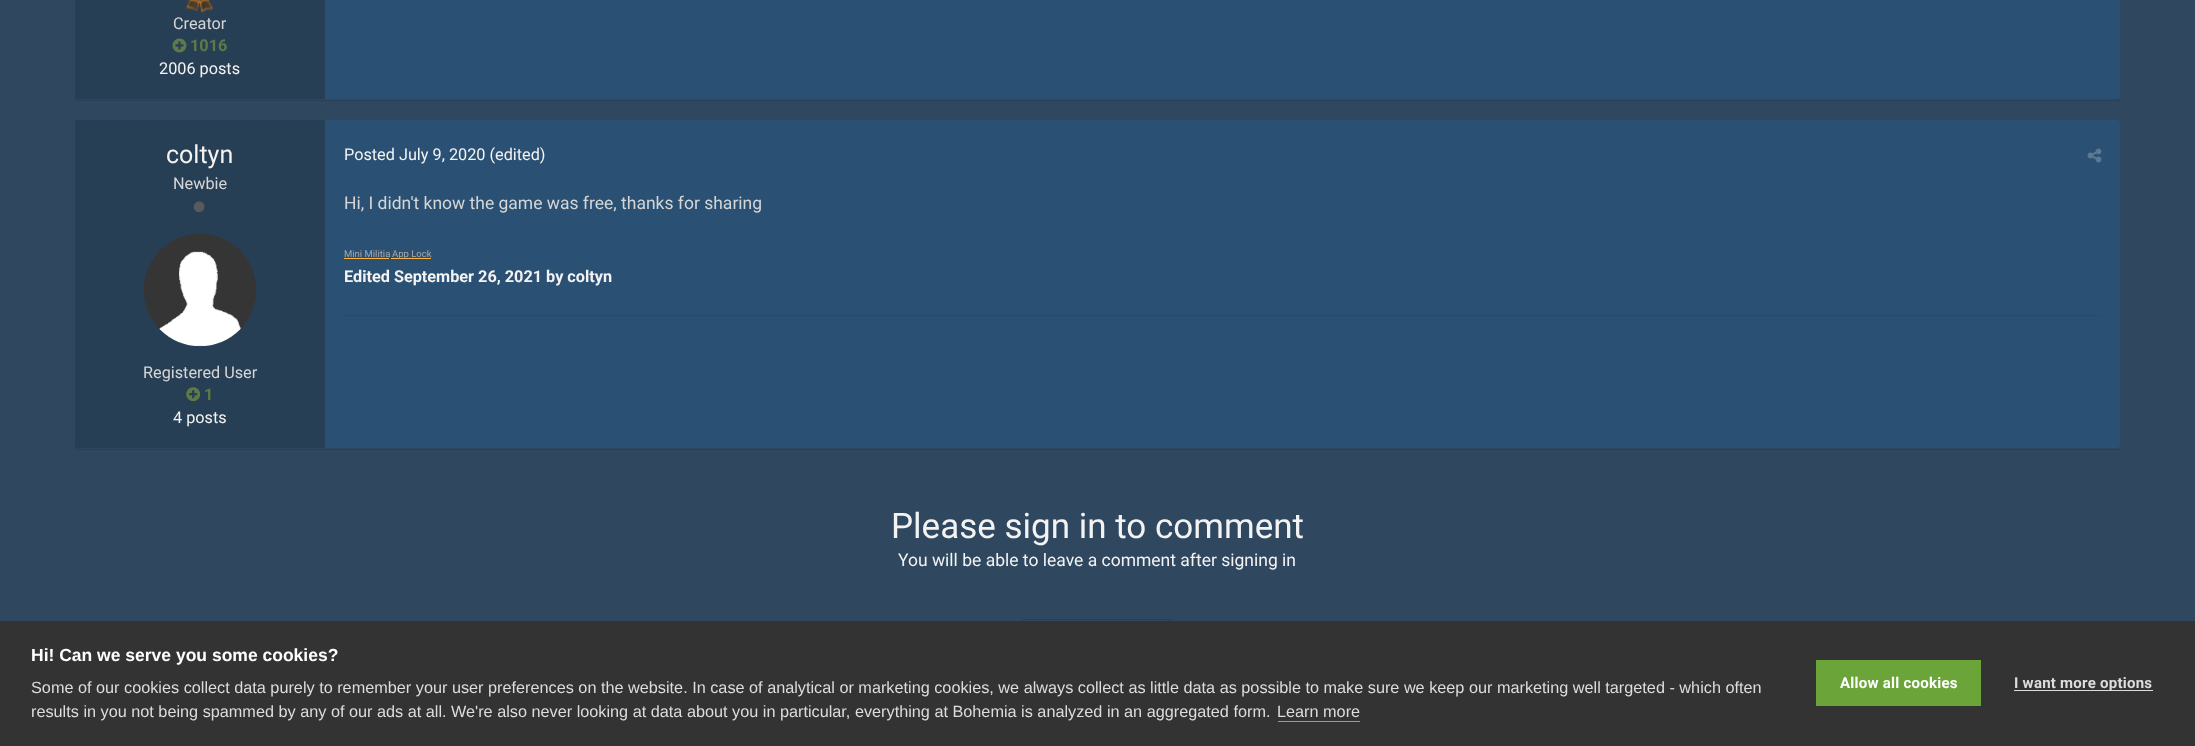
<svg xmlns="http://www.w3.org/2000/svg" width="2195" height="746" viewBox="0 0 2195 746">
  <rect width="100%" height="100%" fill="#2f475f"/>
  <path d="M74 98C74 100 76 101 78 101H2117C2119 101 2121 100 2121 98C2120 99 2119 100 2118 100H78C76 100 75 99 74 98Z" fill="#2a4056"/>
  <rect x="74.5" y="-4.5" width="2046" height="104" rx="3.5" fill="#2a5173" stroke="#2f475f"/>
  <rect x="75" y="0" width="250" height="99" fill="#273f54"/>
  <image x="184" y="0" width="31" height="13" href="img1.png"/>
  <text x="173" y="29" font-family="Roboto" font-size="16.25" fill="#d6d6d6">Creator</text>
  <image x="172" y="38" width="15" height="15" href="img2.png"/>
  <text x="190" y="51" font-family="Roboto" font-size="16.25" font-weight="bold" fill="#5f7a47">1016</text>
  <text x="159" y="74" font-family="Roboto" font-size="16.25" fill="#f3f3f3">2006 posts</text>
  <path d="M74 446C74 448 76 450 78 450H2117C2119 450 2121 448 2121 446C2120 448 2119 449 2118 449H78C76 449 75 448 74 446Z" fill="#2a4056"/>
  <rect x="74.5" y="119.5" width="2046" height="329" rx="3.5" fill="#2a5173" stroke="#2f475f"/>
  <rect x="75" y="120" width="250" height="328" fill="#273f54"/>
  <text x="166" y="163" font-family="Roboto" font-size="25" fill="#f3f3f3">coltyn</text>
  <text x="173" y="189" font-family="Roboto" font-size="16.25" fill="#d6d6d6">Newbie</text>
  <image x="193" y="201" width="12" height="12" href="img3.png"/>
  <image x="144" y="234" width="112" height="113" href="img4.png"/>
  <text x="143" y="378" font-family="Roboto" font-size="16.25" fill="#d6d6d6">Registered User</text>
  <image x="186" y="387" width="15" height="15" href="img5.png"/>
  <text x="204" y="400" font-family="Roboto" font-size="16.25" font-weight="bold" fill="#5f7a47">1</text>
  <text x="173" y="423" font-family="Roboto" font-size="16.25" fill="#f3f3f3">4 posts</text>
  <text x="344" y="160" font-family="Roboto" font-size="16.25" fill="#f3f3f3">Posted July 9, 2020 (edited)</text>
  <image x="2087" y="148" width="15" height="15" href="img6.png"/>
  <text x="344" y="209" font-family="Roboto" font-size="17.5" fill="#d6d6d6">Hi, I didn't know the game was free, thanks for sharing</text>
  <text x="344" y="257" font-family="Roboto" font-size="9.5" fill="#a9a9a9">Mini Militia</text>
  <rect x="344" y="258" width="45" height="1" fill="#ffb140"/>
  <rect x="391" y="258" width="40" height="1" fill="#ffb140"/>
  <text x="392" y="257" font-family="Roboto" font-size="9.5" fill="#a9a9a9">App Lock</text>
  <text x="344" y="282" font-family="Roboto" font-size="16.25" font-weight="bold" fill="#f3f3f3">Edited September 26, 2021 by coltyn</text>
  <rect x="344" y="315" width="1757" height="1" fill="#274b6a"/>
  <text x="891" y="538" font-family="Roboto" font-size="35" fill="#f3f3f3">Please sign in to comment</text>
  <text x="898" y="566" font-family="Roboto" font-size="17.5" fill="#f3f3f3">You will be able to leave a comment after signing in</text>
  <rect x="1021.5" y="619.5" width="152" height="54" rx="3.5" fill="none" stroke="#294056"/>
  <rect x="0" y="621" width="2195" height="125" fill="#333333"/>
  <text x="31" y="661" font-family="Liberation Sans" font-size="17.5" font-weight="bold" fill="#ffffff">Hi! Can we serve you some cookies?</text>
  <text x="31" y="693" font-family="Liberation Sans" font-size="16.25" fill="#dddddd">Some of our cookies collect data purely to remember your user preferences on the website. In case of analytical or marketing cookies, we always collect as little data as possible to make sure we keep our marketing well targeted - which often</text>
  <text x="31" y="717" font-family="Liberation Sans" font-size="16.25" fill="#dddddd">results in you not being spammed by any of our ads at all. We're also never looking at data about you in particular, everything at Bohemia is analyzed in an aggregated form.</text>
  <text x="1277" y="717" font-family="Liberation Sans" font-size="16.25" fill="#dddddd">Learn more</text>
  <rect x="1278" y="721" width="82" height="1" fill="#999999"/>
  <rect x="1816" y="660" width="165" height="46" fill="#6ba539"/>
  <text x="1840" y="688" font-family="Roboto" font-size="15" font-weight="bold" letter-spacing="0.25" fill="#ffffff">Allow all cookies</text>
  <rect x="2014" y="690" width="139" height="1" fill="#dddddd"/>
  <text x="2014" y="688" font-family="Roboto" font-size="15" font-weight="bold" letter-spacing="0.25" fill="#dddddd">I want more options</text>
</svg>
